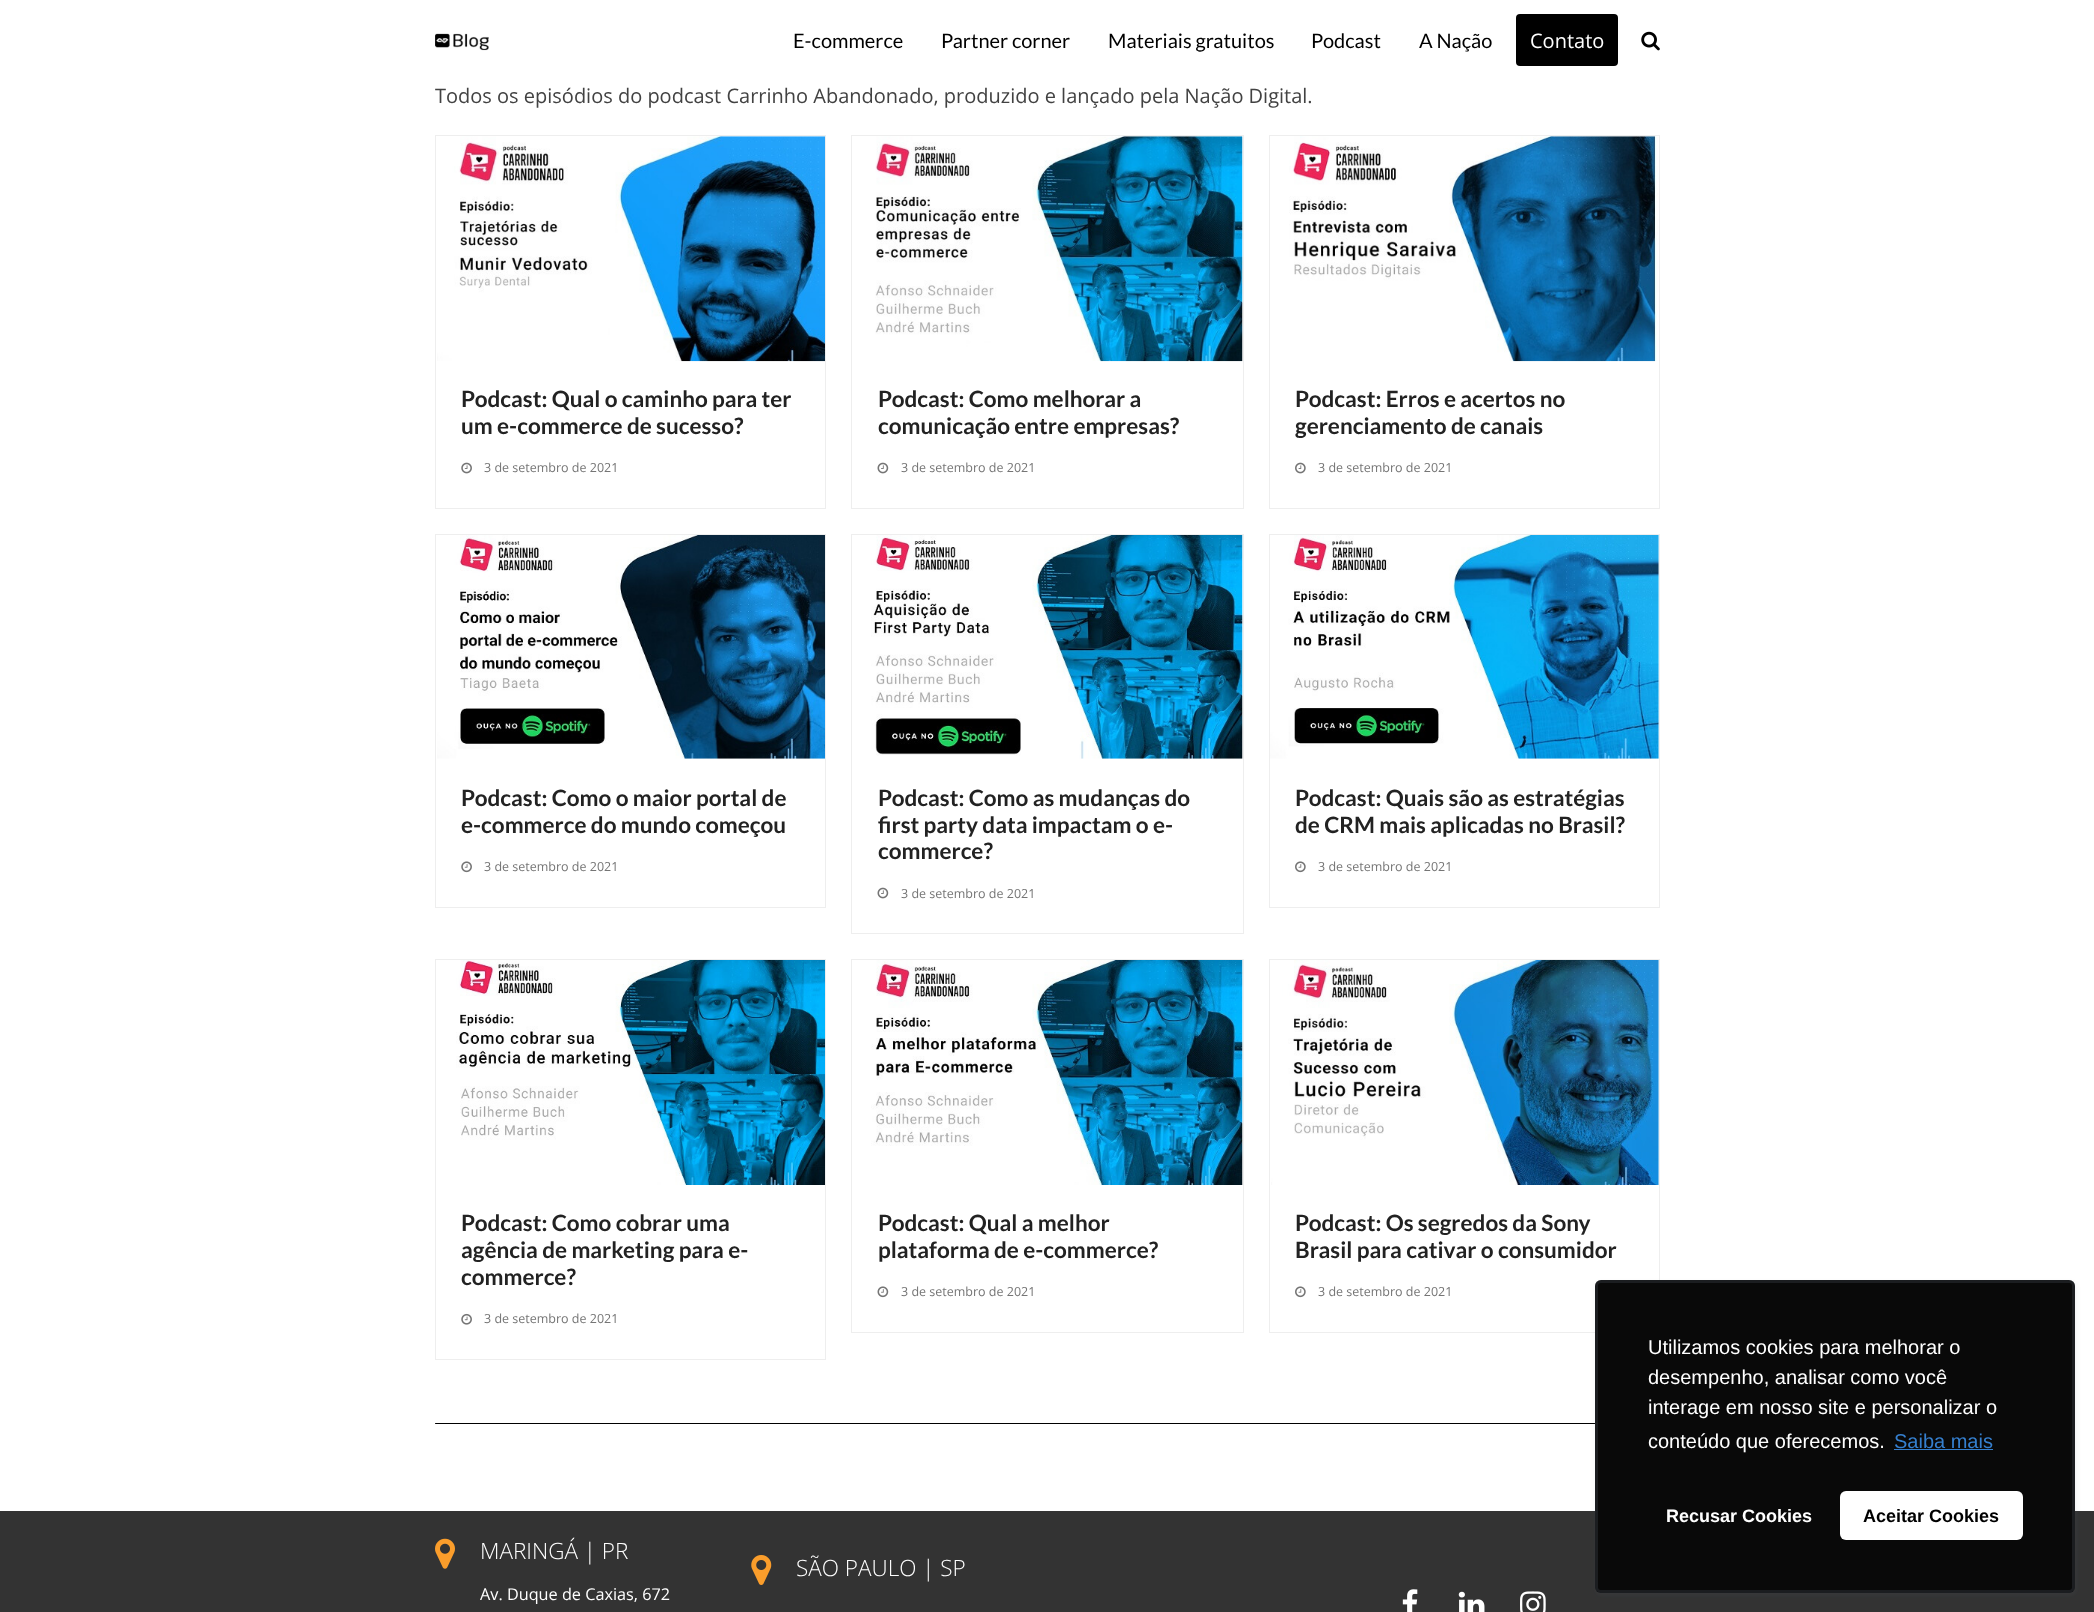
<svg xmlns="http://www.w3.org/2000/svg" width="2094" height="1612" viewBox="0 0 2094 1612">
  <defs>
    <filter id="blur1" x="-50%" y="-200%" width="200%" height="500%"><feGaussianBlur stdDeviation="2.5"/></filter>
  </defs>
  <rect width="100%" height="100%" fill="#ffffff"/>
  <image x="435" y="33" width="54" height="18" href="img1.png"/>
  <text x="793" y="48" font-family="Lato" font-size="20" fill="#000000">E-commerce</text>
  <text x="941" y="48" font-family="Lato" font-size="20" fill="#000000">Partner corner</text>
  <text x="1108" y="48" font-family="Lato" font-size="20" fill="#000000">Materiais gratuitos</text>
  <text x="1311" y="48" font-family="Lato" font-size="20" fill="#000000">Podcast</text>
  <text x="1419" y="48" font-family="Lato" font-size="20" fill="#000000">A Nação</text>
  <rect x="1516" y="14" width="102" height="52" rx="4" fill="#000000"/>
  <text x="1530" y="48" font-family="Open Sans" font-size="20" fill="#ffffff">Contato</text>
  <image x="1641" y="31" width="19" height="20" href="img2.png"/>
  <text x="435" y="103" font-family="Open Sans" font-size="20" fill="#424242">Todos os episódios do podcast Carrinho Abandonado, produzido e lançado pela Nação Digital.</text>
  <rect x="435.5" y="135.5" width="390" height="373" fill="none" stroke="#eeeeee"/>
  <image x="437" y="136" width="388" height="226" href="img3.png"/>
  <text x="461" y="407" font-family="Lato" font-size="22.5" font-weight="bold" fill="#222222">Podcast: Qual o caminho para ter</text>
  <text x="461" y="434" font-family="Lato" font-size="22.5" font-weight="bold" fill="#222222">um e-commerce de sucesso?</text>
  <image x="461" y="462" width="11" height="12" href="img4.png"/>
  <text x="484" y="472" font-family="Open Sans" font-size="12.5" fill="#757575">3 de setembro de 2021</text>
  <rect x="851.5" y="135.5" width="392" height="373" fill="none" stroke="#eeeeee"/>
  <image x="875" y="136" width="368" height="226" href="img5.png"/>
  <text x="878" y="407" font-family="Lato" font-size="22.5" font-weight="bold" fill="#222222">Podcast: Como melhorar a</text>
  <text x="878" y="434" font-family="Lato" font-size="22.5" font-weight="bold" fill="#222222">comunicação entre empresas?</text>
  <image x="877" y="462" width="12" height="12" href="img6.png"/>
  <text x="901" y="472" font-family="Open Sans" font-size="12.5" fill="#757575">3 de setembro de 2021</text>
  <rect x="1269.5" y="135.5" width="390" height="373" fill="none" stroke="#eeeeee"/>
  <image x="1289" y="136" width="370" height="226" href="img7.png"/>
  <text x="1295" y="407" font-family="Lato" font-size="22.5" font-weight="bold" fill="#222222">Podcast: Erros e acertos no</text>
  <text x="1295" y="434" font-family="Lato" font-size="22.5" font-weight="bold" fill="#222222">gerenciamento de canais</text>
  <image x="1295" y="462" width="11" height="12" href="img8.png"/>
  <text x="1318" y="472" font-family="Open Sans" font-size="12.5" fill="#757575">3 de setembro de 2021</text>
  <rect x="435.5" y="534.5" width="390" height="373" fill="none" stroke="#eeeeee"/>
  <image x="437" y="535" width="388" height="224" href="img9.png"/>
  <text x="461" y="806" font-family="Lato" font-size="22.5" font-weight="bold" fill="#222222">Podcast: Como o maior portal de</text>
  <text x="461" y="833" font-family="Lato" font-size="22.5" font-weight="bold" fill="#222222">e-commerce do mundo começou</text>
  <image x="461" y="861" width="11" height="12" href="img10.png"/>
  <text x="484" y="871" font-family="Open Sans" font-size="12.5" fill="#757575">3 de setembro de 2021</text>
  <rect x="851.5" y="534.5" width="392" height="399" fill="none" stroke="#eeeeee"/>
  <image x="871" y="535" width="372" height="224" href="img11.png"/>
  <text x="878" y="806" font-family="Lato" font-size="22.5" font-weight="bold" fill="#222222">Podcast: Como as mudanças do</text>
  <text x="878" y="833" font-family="Lato" font-size="22.5" font-weight="bold" fill="#222222">first party data impactam o e-</text>
  <text x="878" y="859" font-family="Lato" font-size="22.5" font-weight="bold" fill="#222222">commerce?</text>
  <image x="877" y="887" width="12" height="12" href="img6.png"/>
  <text x="901" y="898" font-family="Open Sans" font-size="12.5" fill="#757575">3 de setembro de 2021</text>
  <rect x="1269.5" y="534.5" width="390" height="373" fill="none" stroke="#eeeeee"/>
  <image x="1270" y="535" width="389" height="224" href="img12.png"/>
  <text x="1295" y="806" font-family="Lato" font-size="22.5" font-weight="bold" fill="#222222">Podcast: Quais são as estratégias</text>
  <text x="1295" y="833" font-family="Lato" font-size="22.5" font-weight="bold" fill="#222222">de CRM mais aplicadas no Brasil?</text>
  <image x="1295" y="861" width="11" height="12" href="img13.png"/>
  <text x="1318" y="871" font-family="Open Sans" font-size="12.5" fill="#757575">3 de setembro de 2021</text>
  <rect x="435.5" y="959.5" width="390" height="400" fill="none" stroke="#eeeeee"/>
  <image x="456" y="960" width="369" height="225" href="img14.png"/>
  <text x="461" y="1231" font-family="Lato" font-size="22.5" font-weight="bold" fill="#222222">Podcast: Como cobrar uma</text>
  <text x="461" y="1258" font-family="Lato" font-size="22.5" font-weight="bold" fill="#222222">agência de marketing para e-</text>
  <text x="461" y="1285" font-family="Lato" font-size="22.5" font-weight="bold" fill="#222222">commerce?</text>
  <image x="461" y="1313" width="11" height="12" href="img15.png"/>
  <text x="484" y="1323" font-family="Open Sans" font-size="12.5" fill="#757575">3 de setembro de 2021</text>
  <rect x="851.5" y="959.5" width="392" height="373" fill="none" stroke="#eeeeee"/>
  <image x="871" y="960" width="372" height="225" href="img16.png"/>
  <text x="878" y="1231" font-family="Lato" font-size="22.5" font-weight="bold" fill="#222222">Podcast: Qual a melhor</text>
  <text x="878" y="1258" font-family="Lato" font-size="22.5" font-weight="bold" fill="#222222">plataforma de e-commerce?</text>
  <image x="877" y="1286" width="12" height="12" href="img17.png"/>
  <text x="901" y="1296" font-family="Open Sans" font-size="12.5" fill="#757575">3 de setembro de 2021</text>
  <rect x="1269.5" y="959.5" width="390" height="373" fill="none" stroke="#eeeeee"/>
  <image x="1271" y="960" width="388" height="225" href="img18.png"/>
  <text x="1295" y="1231" font-family="Lato" font-size="22.5" font-weight="bold" fill="#222222">Podcast: Os segredos da Sony</text>
  <text x="1295" y="1258" font-family="Lato" font-size="22.5" font-weight="bold" fill="#222222">Brasil para cativar o consumidor</text>
  <image x="1295" y="1286" width="11" height="12" href="img13.png"/>
  <text x="1318" y="1296" font-family="Open Sans" font-size="12.5" fill="#757575">3 de setembro de 2021</text>
  <rect x="435" y="1423" width="1225" height="1" rx="0.5" fill="#000000"/>
  <rect x="0" y="1511" width="2094" height="101" fill="#333333"/>
  <image x="435" y="1538" width="20" height="31" href="img19.png"/>
  <text x="480" y="1559" font-family="Open Sans" font-size="22.5" font-weight="300" fill="#ffffff">MARINGÁ | PR</text>
  <text x="480" y="1600" font-family="Open Sans" font-size="16.25" fill="#ffffff">Av. Duque de Caxias, 672</text>
  <image x="751" y="1555" width="21" height="30" href="img20.png"/>
  <text x="796" y="1576" font-family="Open Sans" font-size="22.5" font-weight="300" fill="#ffffff">SÃO PAULO | SP</text>
  <image x="1402" y="1589" width="16" height="23" href="img21.png"/>
  <image x="1458" y="1591" width="27" height="21" href="img22.png"/>
  <image x="1520" y="1591" width="26" height="21" href="img23.png"/>
  <rect x="1596" y="1283" width="480" height="312" rx="6" fill="#636e7c" fill-opacity="0.1" filter="url(#blur1)"/>
  <rect x="1595" y="1280" width="480" height="313" rx="6" fill="#090909"/>
  <rect x="1596.5" y="1281.5" width="477" height="310" rx="4.5" fill="none" stroke="#636e7c" stroke-opacity="0.2" stroke-width="3"/>
  <text x="1648" y="1354" font-family="Liberation Sans" font-size="20" fill="#ffffff">Utilizamos cookies para melhorar o</text>
  <text x="1648" y="1384" font-family="Liberation Sans" font-size="20" fill="#ffffff">desempenho, analisar como você</text>
  <text x="1648" y="1414" font-family="Liberation Sans" font-size="20" fill="#ffffff">interage em nosso site e personalizar o</text>
  <text x="1648" y="1448" font-family="Liberation Sans" font-size="20" fill="#ffffff">conteúdo que oferecemos.</text>
  <text x="1894" y="1448" font-family="Liberation Sans" font-size="20" fill="#357fce">Saiba mais</text>
  <rect x="1894" y="1449" width="99" height="1" fill="#357fce"/>
  <text x="1666" y="1522" font-family="Liberation Sans" font-size="18" font-weight="bold" fill="#ffffff">Recusar Cookies</text>
  <rect x="1840" y="1491" width="183" height="49" rx="6" fill="#ffffff"/>
  <text x="1863" y="1522" font-family="Liberation Sans" font-size="18" font-weight="bold" fill="#000000">Aceitar Cookies</text>
</svg>
